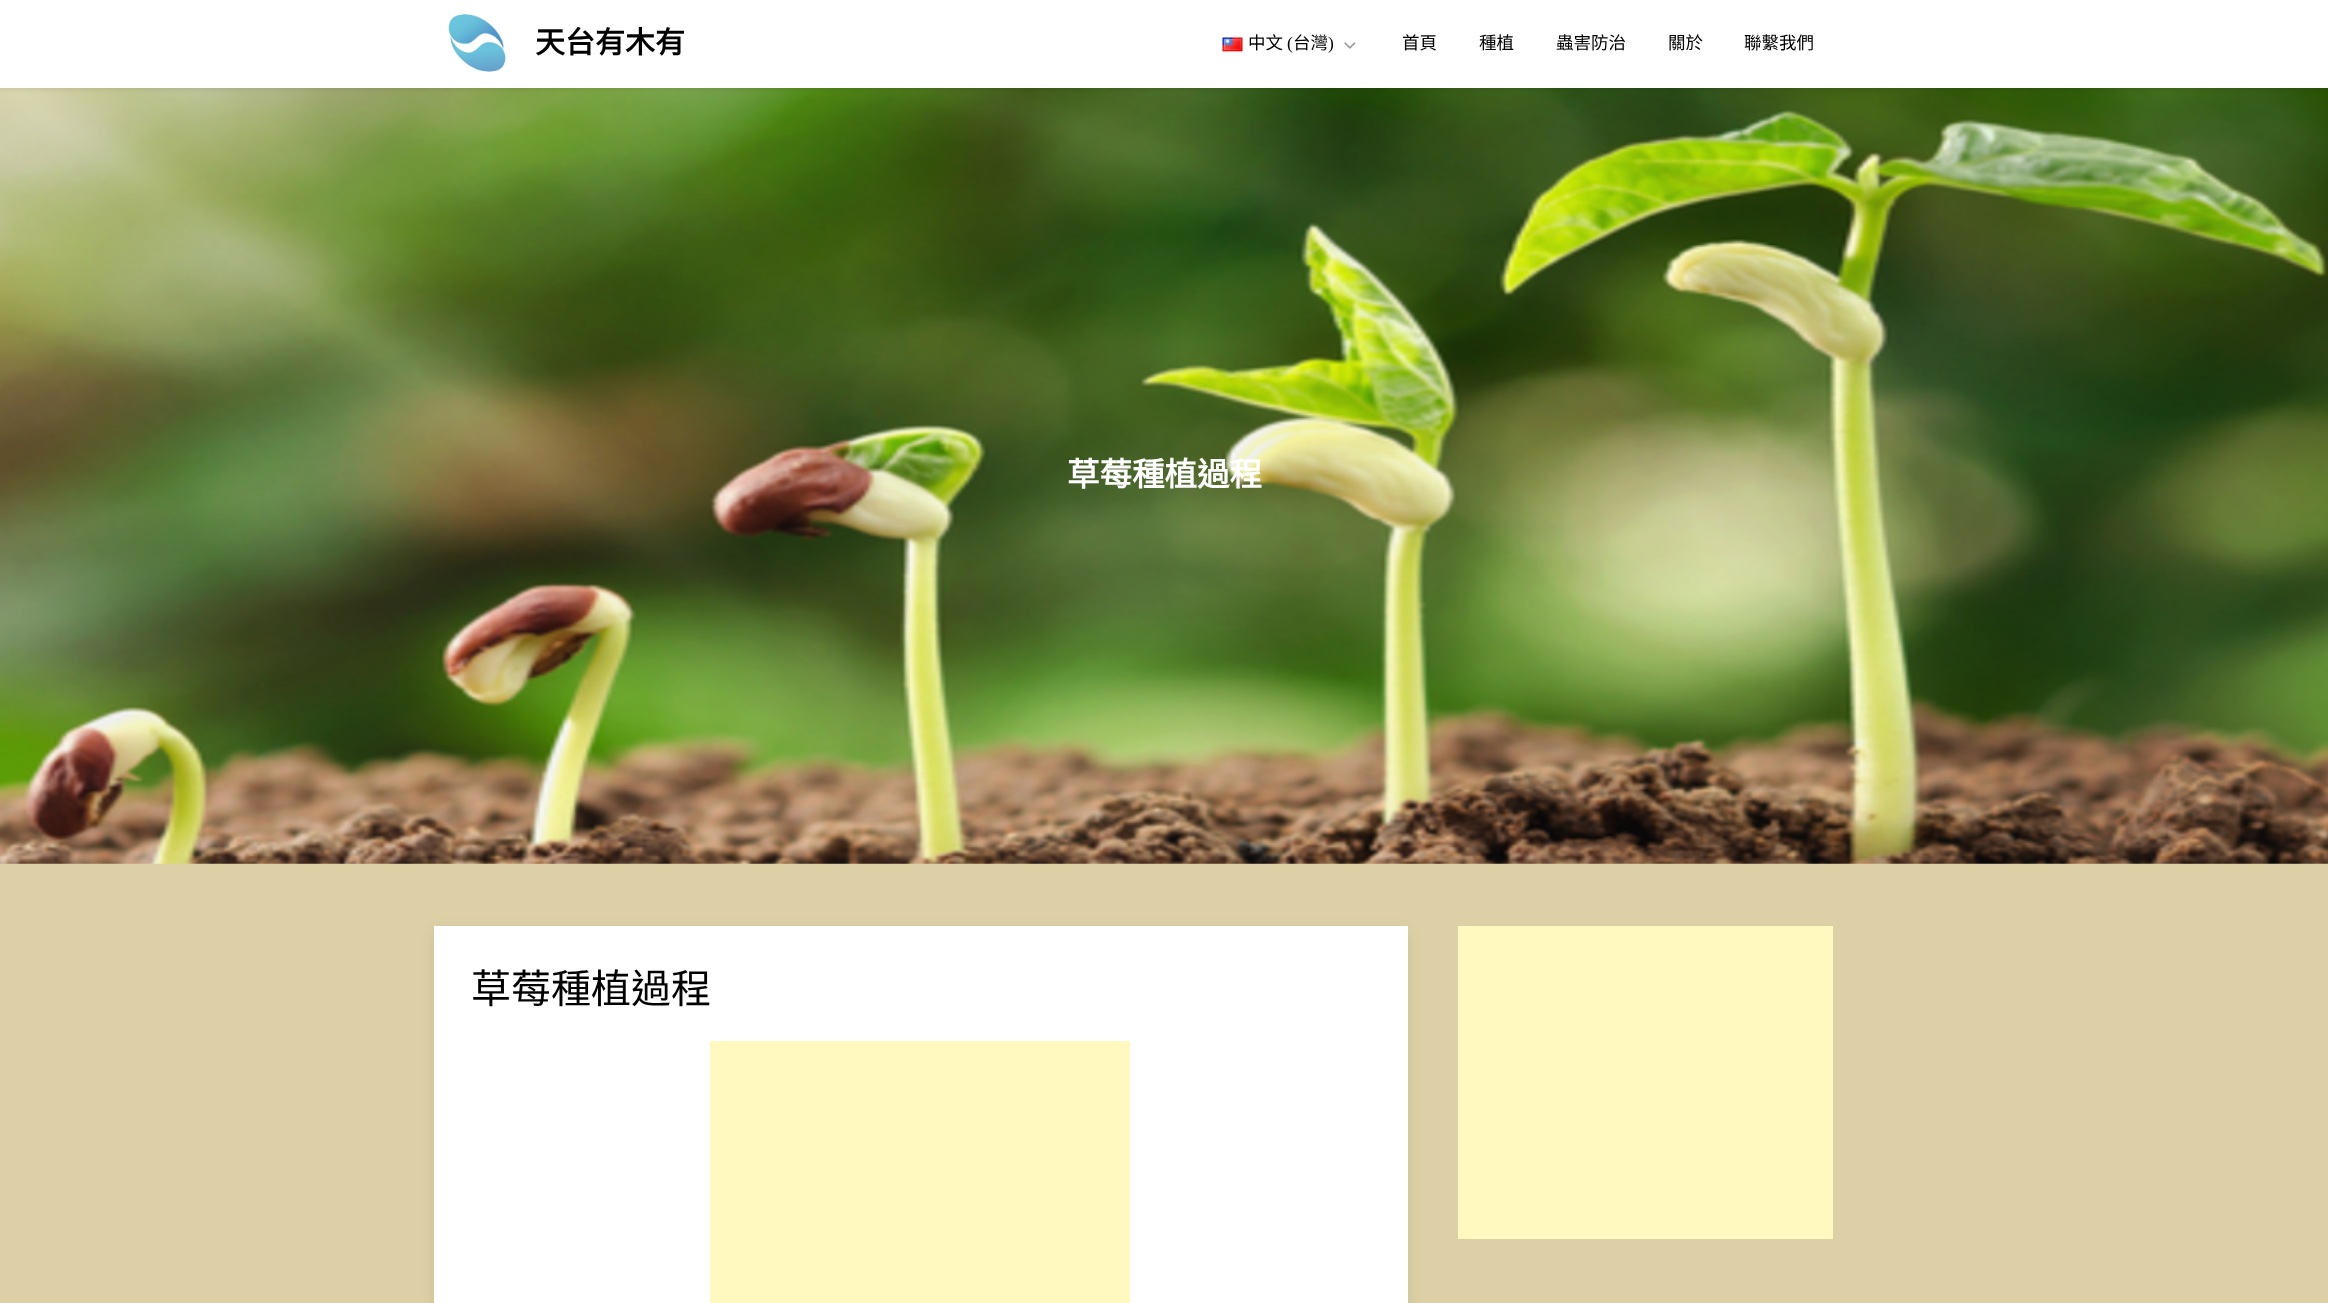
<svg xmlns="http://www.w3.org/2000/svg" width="2328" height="1303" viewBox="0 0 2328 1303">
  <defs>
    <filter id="blur1" x="-50%" y="-200%" width="200%" height="500%"><feGaussianBlur stdDeviation="2"/></filter>
    <filter id="blur2" x="-50%" y="-200%" width="200%" height="500%"><feGaussianBlur stdDeviation="7.5"/></filter>
  </defs>
  <rect width="100%" height="100%" fill="#ddd0a6"/>
  <image x="0" y="88" width="2328" height="776" href="img4.png"/>
  <rect x="0" y="3" width="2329" height="87" fill="#000000" fill-opacity="0.07" filter="url(#blur1)"/>
  <rect x="0" y="0" width="2328" height="88" fill="#ffffff"/>
  <image x="448" y="14" width="58" height="58" href="img1.png"/>
  <text x="535" y="53" font-family="Noto Sans CJK TC" font-size="30" font-weight="bold" fill="#000000">天台有木有</text>
  <image x="1222" y="37" width="21" height="15" href="img2.png"/>
  <text x="1248" y="49" font-family="Noto Sans CJK TC" font-size="17.5" fill="#000000">中文</text>
  <text x="1287" y="49" font-family="Liberation Serif" font-size="17.5" fill="#000000">(</text>
  <text x="1293" y="49" font-family="Noto Sans CJK TC" font-size="17.5" fill="#000000">台灣</text>
  <text x="1328" y="49" font-family="Liberation Serif" font-size="17.5" fill="#000000">)</text>
  <image x="1344" y="42" width="12" height="7" href="img3.png"/>
  <text x="1402" y="49" font-family="Noto Sans CJK TC" font-size="17.5" fill="#000000">首頁</text>
  <text x="1479" y="49" font-family="Noto Sans CJK TC" font-size="17.5" fill="#000000">種植</text>
  <text x="1556" y="49" font-family="Noto Sans CJK TC" font-size="17.5" fill="#000000">蟲害防治</text>
  <text x="1668" y="49" font-family="Noto Sans CJK TC" font-size="17.5" fill="#000000">關於</text>
  <text x="1744" y="49" font-family="Noto Sans CJK TC" font-size="17.5" fill="#000000">聯繫我們</text>
  <text x="1067" y="486" font-family="Noto Sans CJK TC" font-size="32.5" font-weight="bold" fill="#ffffff">草莓種植過程</text>
  <rect x="435" y="931" width="971" height="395" fill="#070a19" fill-opacity="0.1" filter="url(#blur2)"/>
  <rect x="434" y="926" width="974" height="377" fill="#ffffff"/>
  <text x="471" y="1003" font-family="Noto Sans CJK TC" font-size="40" fill="#000000">草莓種植過程</text>
  <rect x="710" y="1041" width="420" height="262" fill="#fff9c0"/>
  <rect x="1458" y="926" width="375" height="313" fill="#fff9c0"/>
</svg>
